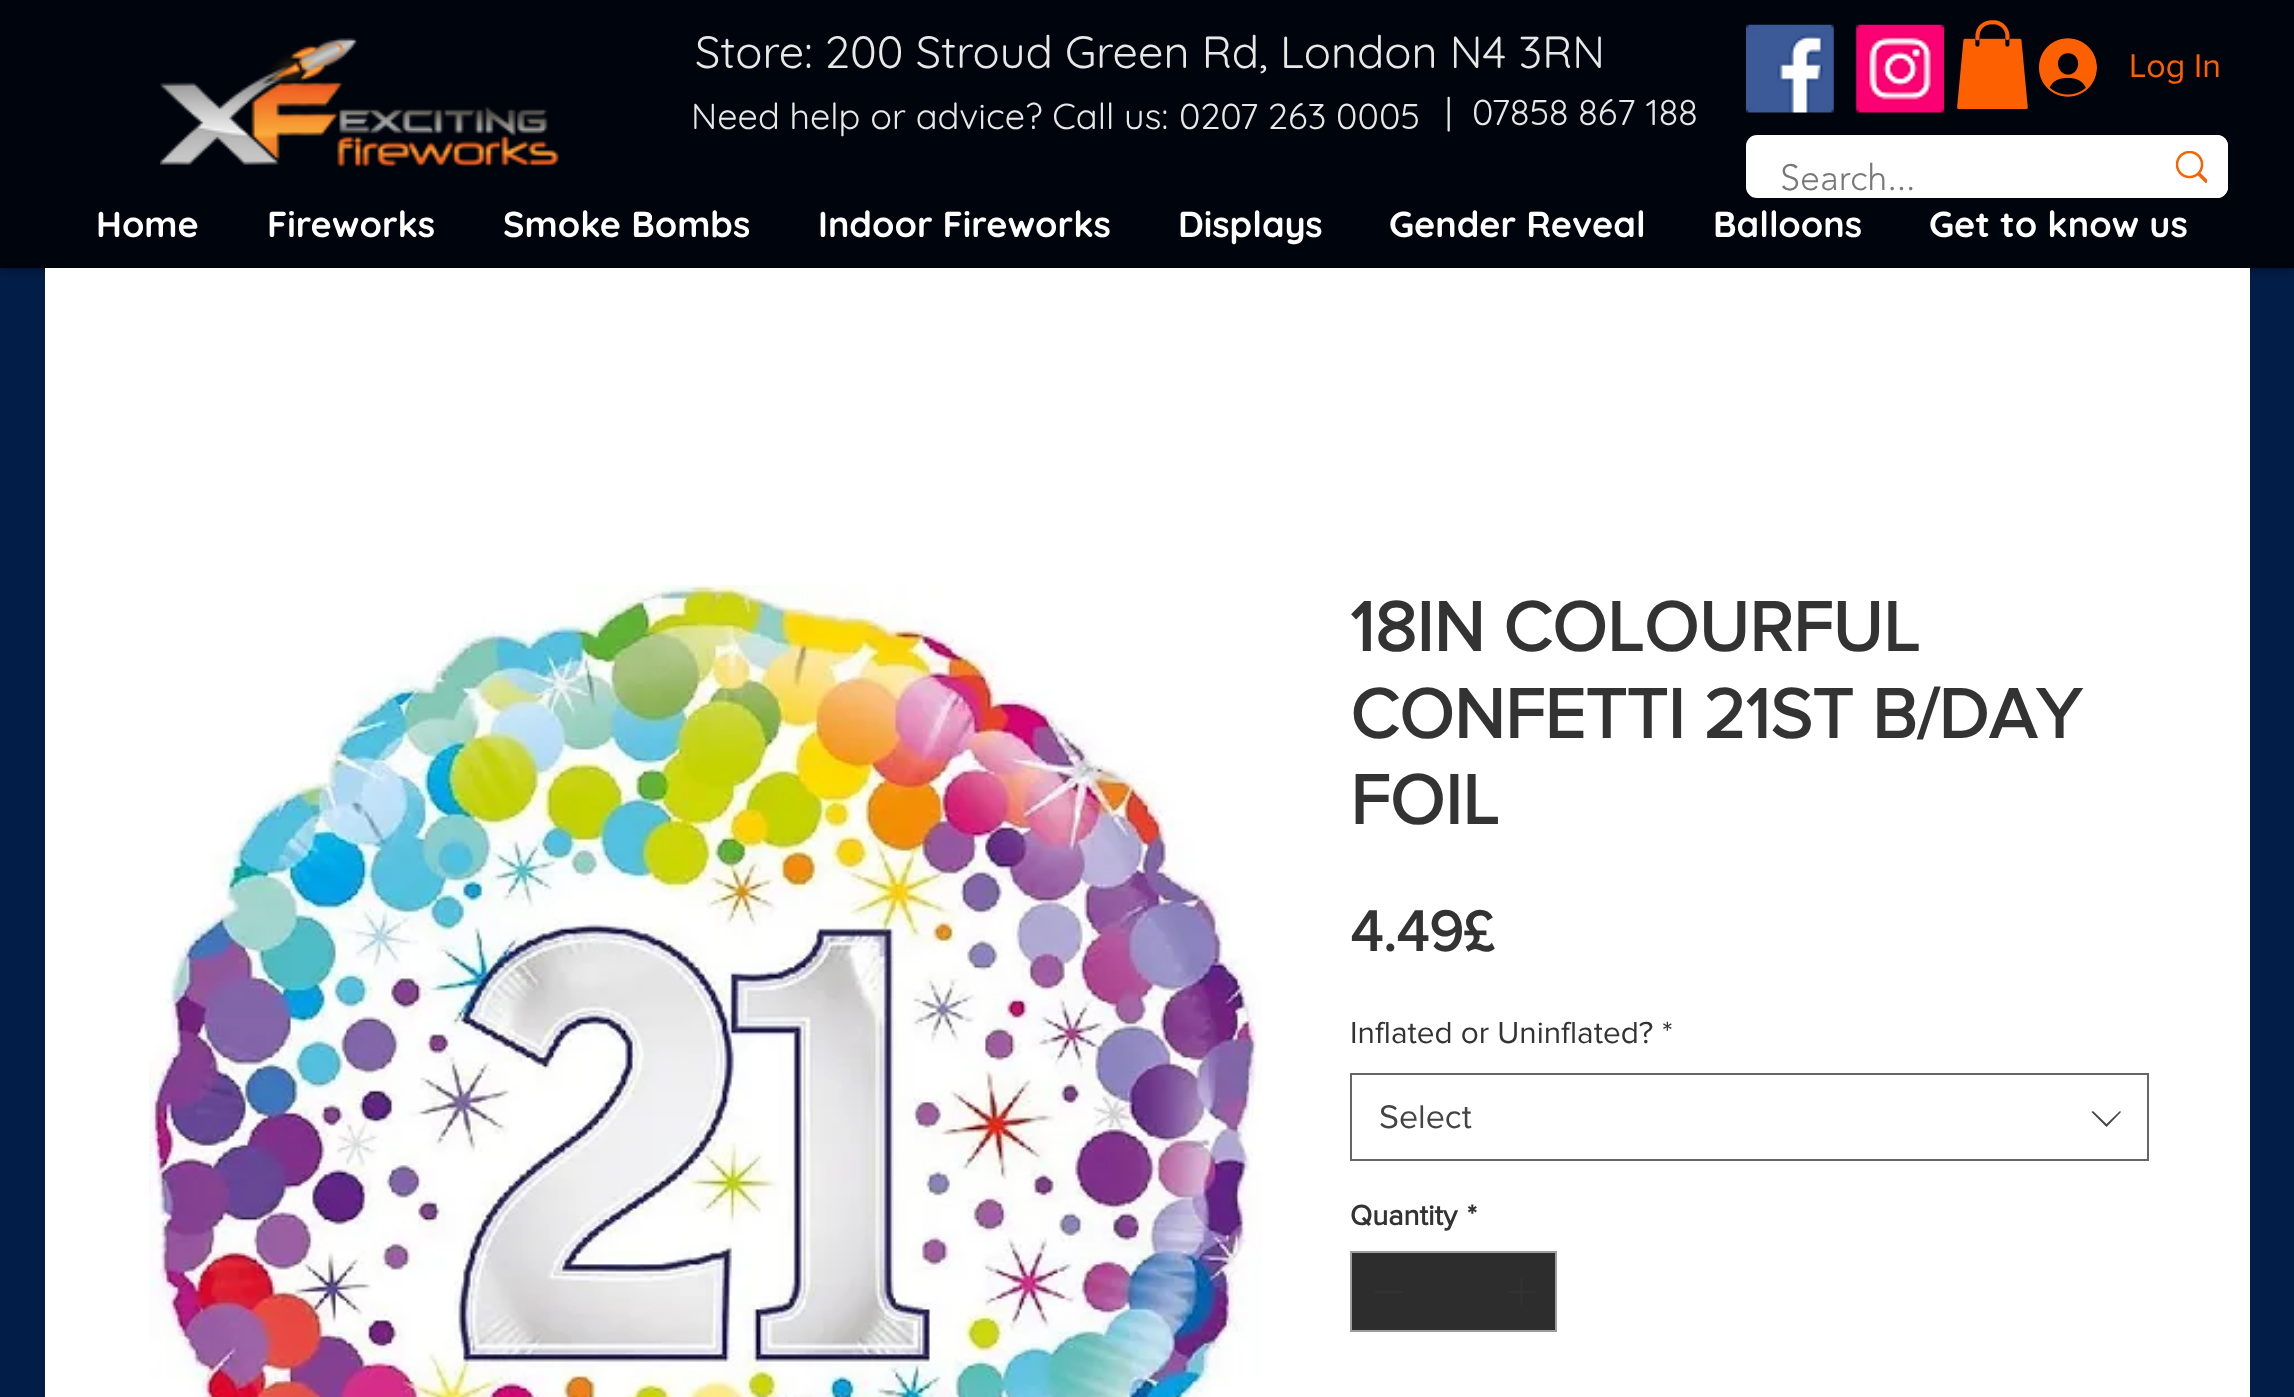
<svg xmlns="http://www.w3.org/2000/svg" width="2294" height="1397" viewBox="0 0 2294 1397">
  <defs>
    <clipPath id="clip1"><path d="M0 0H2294V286H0ZM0 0H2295V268H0Z" clip-rule="evenodd"/></clipPath>
    <filter id="blur1" x="-50%" y="-200%" width="200%" height="500%"><feGaussianBlur stdDeviation="5.5"/></filter>
  </defs>
  <rect width="100%" height="100%" fill="#021d47"/>
  <g clip-path="url(#clip1)">
    <rect x="0" y="0" width="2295" height="268" fill="#000000" fill-opacity="0.5" filter="url(#blur1)"/>
  </g>
  <rect x="0" y="0" width="2294" height="268" fill="#000000" fill-opacity="0.82"/>
  <image x="160" y="38" width="399" height="129" href="img1.png"/>
  <text x="695" y="68" font-family="Quicksand" font-size="45" fill="#e8e8e8">Store: 200 Stroud Green Rd, London N4 3RN</text>
  <image x="1746" y="24" width="88" height="89" href="img2.png"/>
  <image x="1856" y="24" width="88" height="89" href="img3.png"/>
  <image x="1957" y="20" width="71" height="89" href="img4.png"/>
  <image x="2039" y="38" width="58" height="59" href="img5.png"/>
  <text x="2129" y="77" font-family="'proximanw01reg'" font-size="34" fill="#fc6000">Log In</text>
  <text x="691" y="129" font-family="Quicksand" font-size="36" fill="#e8e8e8">Need help or advice? Call us:</text>
  <text x="1179" y="129" font-family="Quicksand" font-size="36" fill="#e8e8e8">0207 263 0005</text>
  <text x="1445" y="125" font-family="Quicksand" font-size="36" fill="#e8e8e8" xml:space="preserve">|  07858 867 188</text>
  <rect x="1746" y="135" width="482" height="63" rx="11" fill="#ffffff"/>
  <text x="1780" y="190" font-family="'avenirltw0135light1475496'" font-size="36" font-weight="300" fill="#787878">Search...</text>
  <path d="M2153 135H2217C2223 135 2228 140 2228 146V187C2228 193 2223 198 2217 198H2153Z" fill="#ffffff"/>
  <image x="2176" y="151" width="31" height="33" href="img6.png"/>
  <text x="96" y="237" font-family="Quicksand" font-size="36" font-weight="bold" fill="#ffffff">Home</text>
  <text x="267" y="237" font-family="Quicksand" font-size="36" font-weight="bold" fill="#ffffff">Fireworks</text>
  <text x="503" y="237" font-family="Quicksand" font-size="36" font-weight="bold" fill="#ffffff">Smoke Bombs</text>
  <text x="818" y="237" font-family="Quicksand" font-size="36" font-weight="bold" fill="#ffffff">Indoor Fireworks</text>
  <text x="1178" y="237" font-family="Quicksand" font-size="36" font-weight="bold" fill="#ffffff">Displays</text>
  <text x="1389" y="237" font-family="Quicksand" font-size="36" font-weight="bold" fill="#ffffff">Gender Reveal</text>
  <text x="1713" y="237" font-family="Quicksand" font-size="36" font-weight="bold" fill="#ffffff">Balloons</text>
  <text x="1929" y="237" font-family="Quicksand" font-size="36" font-weight="bold" fill="#ffffff">Get to know us</text>
  <rect x="45" y="268" width="2205" height="1129" fill="#ffffff"/>
  <image x="149" y="585" width="1113" height="812" href="img7.png"/>
  <text x="1350" y="651" font-family="'proximanw01reg'" font-size="72" font-weight="bold" fill="#333333">18IN COLOURFUL</text>
  <text x="1350" y="738" font-family="'proximanw01reg'" font-size="72" font-weight="bold" fill="#333333">CONFETTI 21ST B/DAY</text>
  <text x="1350" y="824" font-family="'proximanw01reg'" font-size="72" font-weight="bold" fill="#333333">FOIL</text>
  <text x="1350" y="951" font-family="'proximanw01reg'" font-size="58.5" font-weight="bold" fill="#333333">4.49£</text>
  <text x="1350" y="1043" font-family="'proximanw01reg'" font-size="31.5" fill="#333333">Inflated or Uninflated?</text>
  <text x="1662" y="1043" font-family="'proximanw01reg'" font-size="31.5" fill="#333333">*</text>
  <rect x="1351" y="1074" width="797" height="86" fill="none" stroke="#666666" stroke-width="2"/>
  <text x="1379" y="1128" font-family="'proximanw01reg'" font-size="34" fill="#444444">Select</text>
  <path d="M2120 1111L2121 1112L2106.5 1127L2091.5 1112L2093 1111L2106.5 1124Z" fill="#444444" fill-rule="evenodd"/>
  <text x="1350" y="1225" font-family="'proximanw01reg'" font-size="29" font-weight="bold" fill="#333333">Quantity</text>
  <text x="1467" y="1225" font-family="'proximanw01reg'" font-size="29" font-weight="bold" fill="#333333">*</text>
  <rect x="1351" y="1252" width="205" height="79" fill="#2d2d2d" stroke="#9d9d9d" stroke-width="2"/>
  <rect x="1375" y="1291" width="28" height="2" fill="#333333"/>
  <image x="1508" y="1278" width="27" height="27" href="img8.png"/>
</svg>
